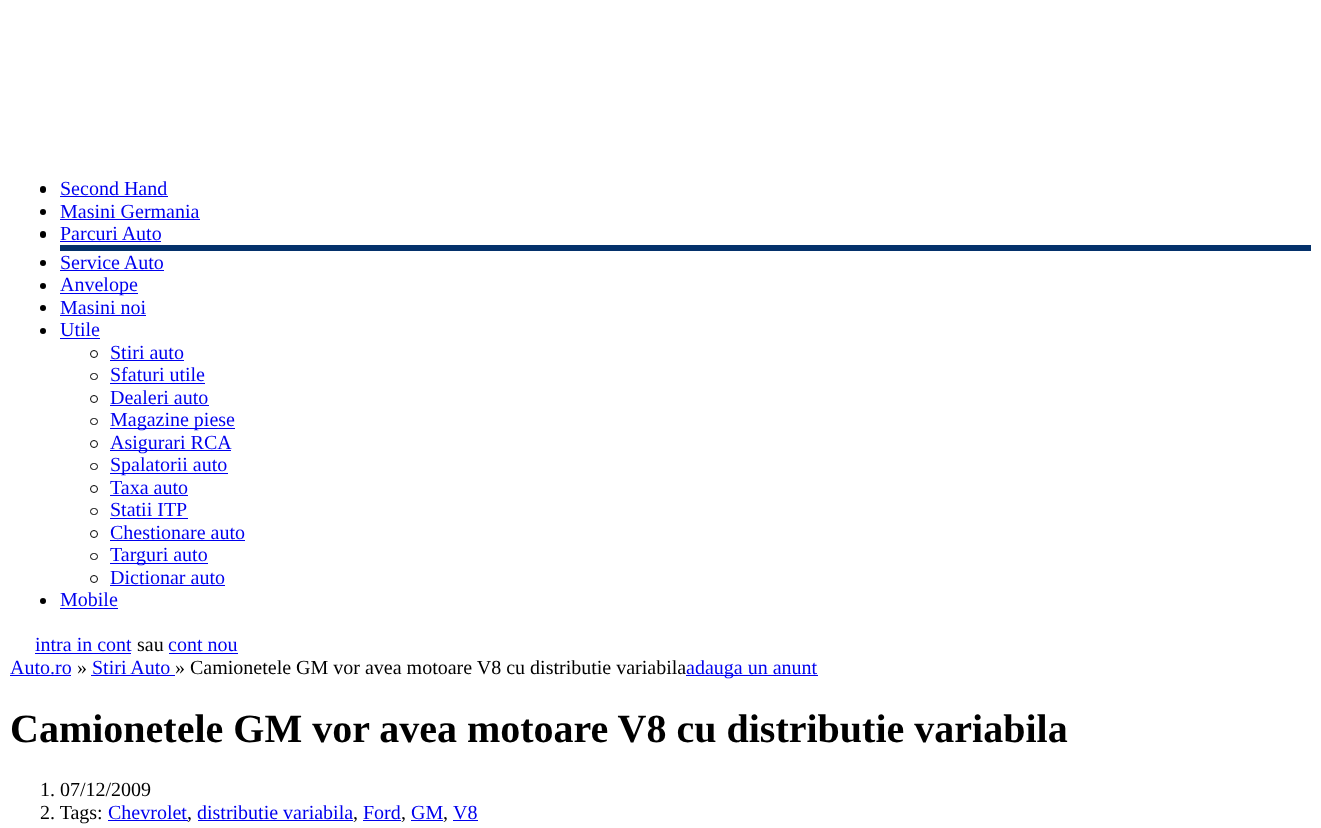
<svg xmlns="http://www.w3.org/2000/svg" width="1321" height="828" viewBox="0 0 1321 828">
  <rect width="100%" height="100%" fill="#ffffff"/>
  <rect x="40" y="186" width="6" height="7" rx="3" fill="#000000"/>
  <text x="60" y="195" font-family="Liberation Serif" font-size="20" fill="#0000ee">Second Hand</text>
  <rect x="60" y="196" width="108" height="1" fill="#0000ee"/>
  <circle cx="43" cy="212" r="3" fill="#000000"/>
  <text x="60" y="218" font-family="Liberation Serif" font-size="20" fill="#0000ee">Masini Germania</text>
  <rect x="60" y="219" width="140" height="1" fill="#0000ee"/>
  <rect x="60" y="245" width="1251" height="6" fill="#04316b"/>
  <rect x="40" y="231" width="6" height="7" rx="3" fill="#000000"/>
  <text x="60" y="240" font-family="Liberation Serif" font-size="20" fill="#0000ee">Parcuri Auto</text>
  <rect x="60" y="241" width="101" height="1" fill="#0000ee"/>
  <circle cx="43" cy="263" r="3" fill="#000000"/>
  <text x="60" y="269" font-family="Liberation Serif" font-size="20" fill="#0000ee">Service Auto</text>
  <rect x="60" y="270" width="104" height="1" fill="#0000ee"/>
  <circle cx="43" cy="286" r="3" fill="#000000"/>
  <rect x="60" y="293" width="78" height="1" fill="#0000ee"/>
  <text x="60" y="291" font-family="Liberation Serif" font-size="20" fill="#0000ee">Anvelope</text>
  <circle cx="43" cy="308" r="3" fill="#000000"/>
  <text x="60" y="314" font-family="Liberation Serif" font-size="20" fill="#0000ee">Masini noi</text>
  <rect x="60" y="315" width="86" height="1" fill="#0000ee"/>
  <circle cx="43" cy="331" r="3" fill="#000000"/>
  <text x="60" y="336" font-family="Liberation Serif" font-size="20" fill="#0000ee">Utile</text>
  <rect x="60" y="338" width="40" height="1" fill="#0000ee"/>
  <circle cx="94" cy="354" r="3.5" fill="none" stroke="#000000"/>
  <text x="110" y="359" font-family="Liberation Serif" font-size="20" fill="#0000ee">Stiri auto</text>
  <rect x="110" y="360" width="74" height="1" fill="#0000ee"/>
  <rect x="90.5" y="373.5" width="7" height="6" rx="3" fill="none" stroke="#000000"/>
  <text x="110" y="381" font-family="Liberation Serif" font-size="20" fill="#0000ee">Sfaturi utile</text>
  <rect x="110" y="383" width="95" height="1" fill="#0000ee"/>
  <circle cx="94" cy="399" r="3.5" fill="none" stroke="#000000"/>
  <text x="110" y="404" font-family="Liberation Serif" font-size="20" fill="#0000ee">Dealeri auto</text>
  <rect x="110" y="405" width="99" height="1" fill="#0000ee"/>
  <rect x="90.5" y="418.5" width="7" height="6" rx="3" fill="none" stroke="#000000"/>
  <rect x="110" y="428" width="125" height="1" fill="#0000ee"/>
  <text x="110" y="426" font-family="Liberation Serif" font-size="20" fill="#0000ee">Magazine piese</text>
  <circle cx="94" cy="444" r="3.5" fill="none" stroke="#000000"/>
  <rect x="110" y="450" width="121" height="1" fill="#0000ee"/>
  <text x="110" y="449" font-family="Liberation Serif" font-size="20" fill="#0000ee">Asigurari RCA</text>
  <rect x="90.5" y="463.5" width="7" height="6" rx="3" fill="none" stroke="#000000"/>
  <rect x="110" y="473" width="118" height="1" fill="#0000ee"/>
  <text x="110" y="471" font-family="Liberation Serif" font-size="20" fill="#0000ee">Spalatorii auto</text>
  <circle cx="94" cy="489" r="3.5" fill="none" stroke="#000000"/>
  <text x="110" y="494" font-family="Liberation Serif" font-size="20" fill="#0000ee">Taxa auto</text>
  <rect x="110" y="495" width="78" height="1" fill="#0000ee"/>
  <rect x="90.5" y="508.5" width="7" height="6" rx="3" fill="none" stroke="#000000"/>
  <text x="110" y="516" font-family="Liberation Serif" font-size="20" fill="#0000ee">Statii ITP</text>
  <rect x="110" y="518" width="78" height="1" fill="#0000ee"/>
  <circle cx="94" cy="534" r="3.5" fill="none" stroke="#000000"/>
  <text x="110" y="539" font-family="Liberation Serif" font-size="20" fill="#0000ee">Chestionare auto</text>
  <rect x="110" y="540" width="135" height="1" fill="#0000ee"/>
  <rect x="90.5" y="553.5" width="7" height="6" rx="3" fill="none" stroke="#000000"/>
  <rect x="110" y="563" width="98" height="1" fill="#0000ee"/>
  <text x="110" y="561" font-family="Liberation Serif" font-size="20" fill="#0000ee">Targuri auto</text>
  <circle cx="94" cy="579" r="3.5" fill="none" stroke="#000000"/>
  <text x="110" y="584" font-family="Liberation Serif" font-size="20" fill="#0000ee">Dictionar auto</text>
  <rect x="110" y="585" width="115" height="1" fill="#0000ee"/>
  <circle cx="43" cy="601" r="3" fill="#000000"/>
  <text x="60" y="606" font-family="Liberation Serif" font-size="20" fill="#0000ee">Mobile</text>
  <rect x="60" y="608" width="58" height="1" fill="#0000ee"/>
  <text x="35" y="651" font-family="Liberation Serif" font-size="20" fill="#0000ee">intra in cont</text>
  <rect x="35" y="653" width="96" height="1" fill="#0000ee"/>
  <text x="137" y="651" font-family="Liberation Serif" font-size="20" fill="#000000">sau</text>
  <text x="168" y="651" font-family="Liberation Serif" font-size="20" fill="#0000ee">cont nou</text>
  <rect x="169" y="653" width="69" height="1" fill="#0000ee"/>
  <text x="10" y="674" font-family="Liberation Serif" font-size="20" fill="#0000ee">Auto.ro</text>
  <rect x="10" y="675" width="61" height="1" fill="#0000ee"/>
  <text x="77" y="674" font-family="Liberation Serif" font-size="20" fill="#000000">»</text>
  <text x="92" y="674" font-family="Liberation Serif" font-size="20" fill="#0000ee">Stiri Auto</text>
  <rect x="91" y="675" width="84" height="1" fill="#0000ee"/>
  <text x="175" y="674" font-family="Liberation Serif" font-size="20" fill="#000000">» Camionetele GM vor avea motoare V8 cu distributie variabila</text>
  <rect x="686" y="675" width="132" height="1" fill="#0000ee"/>
  <text x="686" y="674" font-family="Liberation Serif" font-size="20" fill="#0000ee">adauga un anunt</text>
  <text x="10" y="742" font-family="Liberation Serif" font-size="40" font-weight="bold" fill="#000000">Camionetele GM vor avea motoare V8 cu distributie variabila</text>
  <text x="40" y="796" font-family="Liberation Serif" font-size="20" fill="#000000">1. 07/12/2009</text>
  <text x="40" y="819" font-family="Liberation Serif" font-size="20" fill="#000000">2. Tags:</text>
  <text x="108" y="819" font-family="Liberation Serif" font-size="20" fill="#0000ee">Chevrolet</text>
  <rect x="108" y="820" width="80" height="1" fill="#0000ee"/>
  <text x="187" y="819" font-family="Liberation Serif" font-size="20" fill="#000000">,</text>
  <text x="197" y="819" font-family="Liberation Serif" font-size="20" fill="#0000ee">distributie variabila</text>
  <rect x="198" y="820" width="155" height="1" fill="#0000ee"/>
  <text x="353" y="819" font-family="Liberation Serif" font-size="20" fill="#000000">,</text>
  <text x="363" y="819" font-family="Liberation Serif" font-size="20" fill="#0000ee">Ford</text>
  <rect x="363" y="820" width="38" height="1" fill="#0000ee"/>
  <text x="401" y="819" font-family="Liberation Serif" font-size="20" fill="#000000">,</text>
  <text x="411" y="819" font-family="Liberation Serif" font-size="20" fill="#0000ee">GM</text>
  <rect x="411" y="820" width="32" height="1" fill="#0000ee"/>
  <text x="443" y="819" font-family="Liberation Serif" font-size="20" fill="#000000">,</text>
  <text x="453" y="819" font-family="Liberation Serif" font-size="20" fill="#0000ee">V8</text>
  <rect x="453" y="820" width="25" height="1" fill="#0000ee"/>
</svg>
